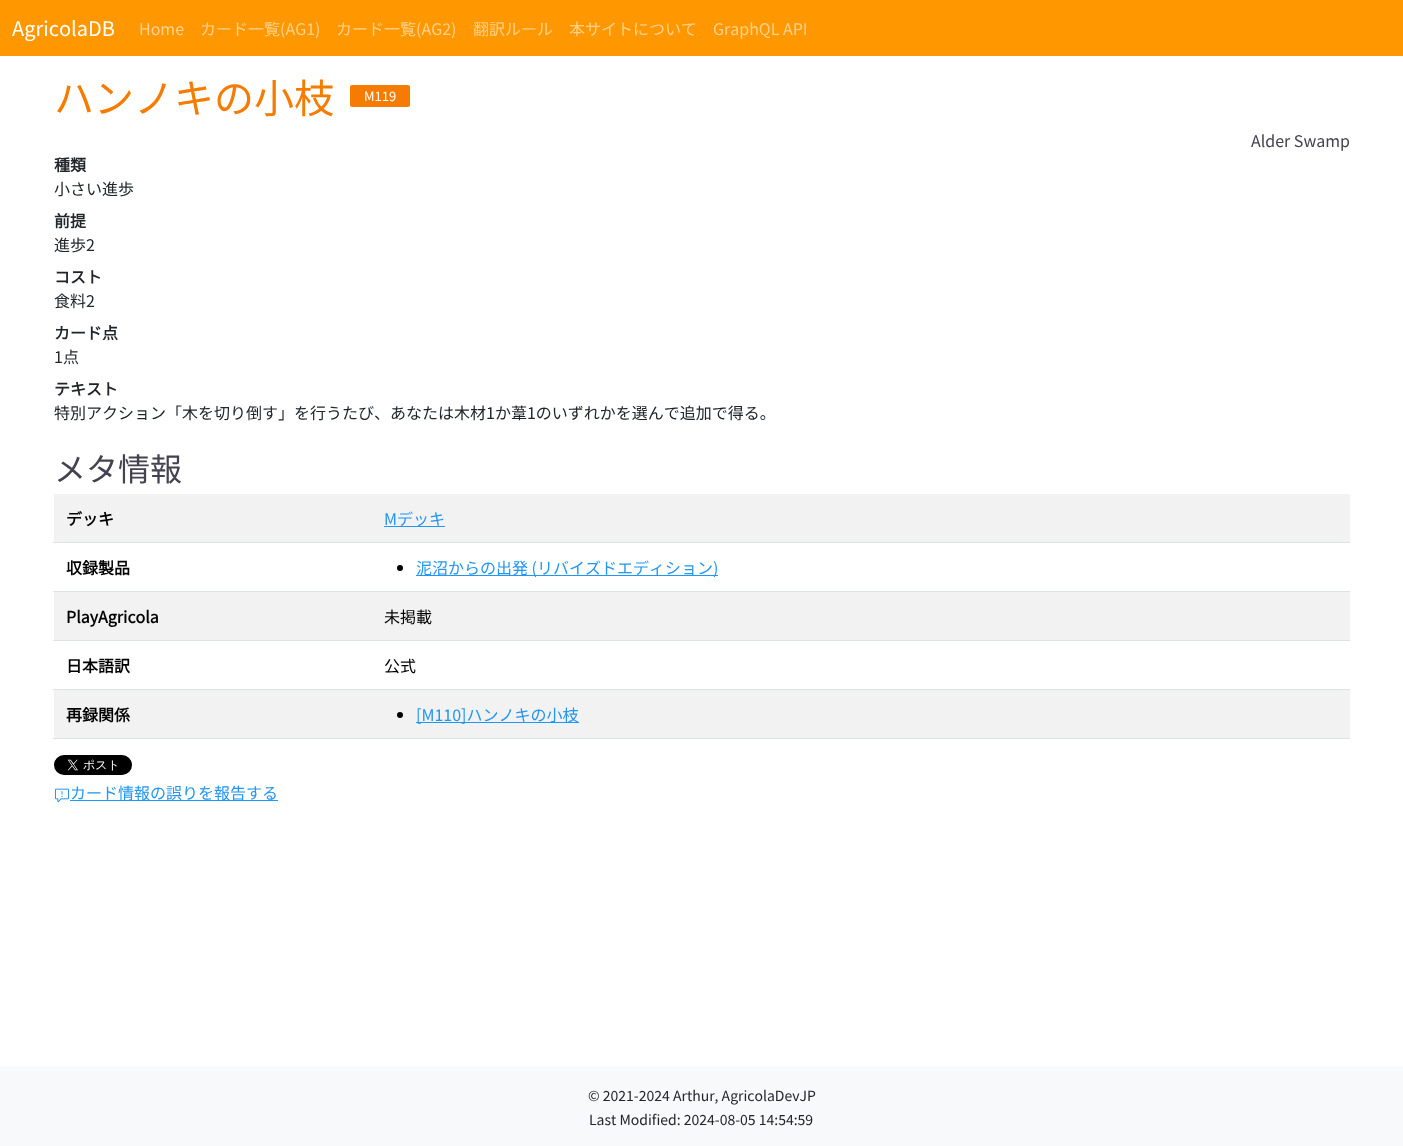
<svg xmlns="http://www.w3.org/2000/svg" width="1403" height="1146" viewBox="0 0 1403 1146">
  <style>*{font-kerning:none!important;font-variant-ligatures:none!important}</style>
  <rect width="100%" height="100%" fill="#ffffff"/>
  <rect x="0" y="0" width="1403" height="56" fill="#ff9800"/>
  <text x="12" y="36" font-family="Noto Sans JP" font-size="20" font-weight="100" fill="#ffffff">AgricolaDB</text>
  <text x="139" y="35" font-family="Noto Sans JP" font-size="16" font-weight="100" fill="#ffd18c">Home</text>
  <text x="200" y="35" font-family="Noto Sans JP" font-size="16" font-weight="100" fill="#ffd18c">カード一覧(AG1)</text>
  <text x="336" y="35" font-family="Noto Sans JP" font-size="16" font-weight="100" fill="#ffd18c">カード一覧(AG2)</text>
  <text x="473" y="35" font-family="Noto Sans JP" font-size="16" font-weight="100" fill="#ffd18c">翻訳ルール</text>
  <text x="569" y="35" font-family="Noto Sans JP" font-size="16" font-weight="100" fill="#ffd18c">本サイトについて</text>
  <text x="713" y="35" font-family="Noto Sans JP" font-size="16" font-weight="100" fill="#ffd18c">GraphQL API</text>
  <text x="54" y="113" font-family="Noto Sans JP" font-size="40" font-weight="100" fill="#f57c00">ハンノキの小枝</text>
  <rect x="350" y="85" width="60" height="22" rx="2" fill="#f57c00"/>
  <text x="364" y="101" font-family="Noto Sans JP" font-size="13" font-weight="100" fill="#ffffff">M119</text>
  <text x="1251" y="147" font-family="Noto Sans JP" font-size="16" font-weight="100" fill="#444250">Alder Swamp</text>
  <text x="54" y="171" font-family="Noto Sans JP" font-size="16" font-weight="bold" fill="#212529">種類</text>
  <text x="54" y="195" font-family="Noto Sans JP" font-size="16" font-weight="100" fill="#212529">小さい進歩</text>
  <text x="54" y="227" font-family="Noto Sans JP" font-size="16" font-weight="bold" fill="#212529">前提</text>
  <text x="54" y="251" font-family="Noto Sans JP" font-size="16" font-weight="100" fill="#212529">進歩2</text>
  <text x="54" y="283" font-family="Noto Sans JP" font-size="16" font-weight="bold" fill="#212529">コスト</text>
  <text x="54" y="307" font-family="Noto Sans JP" font-size="16" font-weight="100" fill="#212529">食料2</text>
  <text x="54" y="339" font-family="Noto Sans JP" font-size="16" font-weight="bold" fill="#212529">カード点</text>
  <text x="54" y="363" font-family="Noto Sans JP" font-size="16" font-weight="100" fill="#212529">1点</text>
  <text x="54" y="395" font-family="Noto Sans JP" font-size="16" font-weight="bold" fill="#212529">テキスト</text>
  <text x="54" y="419" font-family="Noto Sans JP" font-size="16" font-weight="100" fill="#212529">特別アクション「木を切り倒す」を行うたび、あなたは木材1か葦1のいずれかを選んで追加で得る。</text>
  <text x="54" y="481" font-family="Noto Sans JP" font-size="32" font-weight="100" fill="#444250">メタ情報</text>
  <rect x="54" y="494" width="1296" height="48" fill="#f2f2f2"/>
  <text x="66" y="525" font-family="Noto Sans JP" font-size="16" font-weight="bold" fill="#000000">デッキ</text>
  <rect x="53" y="542" width="1297" height="1" fill="#dee2e6"/>
  <rect x="384" y="526" width="61" height="1" fill="#2196f3"/>
  <text x="384" y="525" font-family="Noto Sans JP" font-size="16" font-weight="100" fill="#2196f3">Mデッキ</text>
  <text x="66" y="574" font-family="Noto Sans JP" font-size="16" font-weight="bold" fill="#000000">収録製品</text>
  <rect x="53" y="591" width="1297" height="1" fill="#dee2e6"/>
  <circle cx="400" cy="568" r="3" fill="#000000"/>
  <rect x="416" y="575" width="302" height="1" fill="#2196f3"/>
  <text x="416" y="574" font-family="Noto Sans JP" font-size="16" font-weight="100" fill="#2196f3">泥沼からの出発 (リバイズドエディション)</text>
  <rect x="54" y="592" width="1296" height="48" fill="#f2f2f2"/>
  <text x="66" y="623" font-family="Noto Sans JP" font-size="16" font-weight="bold" fill="#000000">PlayAgricola</text>
  <rect x="53" y="640" width="1297" height="1" fill="#dee2e6"/>
  <text x="384" y="623" font-family="Noto Sans JP" font-size="16" font-weight="100" fill="#000000">未掲載</text>
  <text x="66" y="672" font-family="Noto Sans JP" font-size="16" font-weight="bold" fill="#000000">日本語訳</text>
  <rect x="53" y="689" width="1297" height="1" fill="#dee2e6"/>
  <text x="384" y="672" font-family="Noto Sans JP" font-size="16" font-weight="100" fill="#000000">公式</text>
  <rect x="54" y="690" width="1296" height="48" fill="#f2f2f2"/>
  <text x="66" y="721" font-family="Noto Sans JP" font-size="16" font-weight="bold" fill="#000000">再録関係</text>
  <rect x="53" y="738" width="1297" height="1" fill="#dee2e6"/>
  <circle cx="400" cy="715" r="3" fill="#000000"/>
  <rect x="416" y="722" width="163" height="1" fill="#2196f3"/>
  <text x="416" y="721" font-family="Noto Sans JP" font-size="16" font-weight="100" fill="#2196f3">[M110]ハンノキの小枝</text>
  <image x="54" y="755" width="78" height="20" href="img1.png"/>
  <image x="55" y="788" width="14" height="14" href="img2.png"/>
  <rect x="70" y="800" width="208" height="1" fill="#2196f3"/>
  <text x="70" y="799" font-family="Noto Sans JP" font-size="16" font-weight="100" fill="#2196f3">カード情報の誤りを報告する</text>
  <rect x="0" y="1066" width="1403" height="80" fill="#f8f9fa"/>
  <text x="588" y="1101" font-family="Noto Sans JP" font-size="14" font-weight="100" fill="#212529">© 2021-2024 Arthur, AgricolaDevJP</text>
  <text x="589" y="1125" font-family="Noto Sans JP" font-size="14" font-weight="100" fill="#212529">Last Modified: 2024-08-05 14:54:59</text>
</svg>
